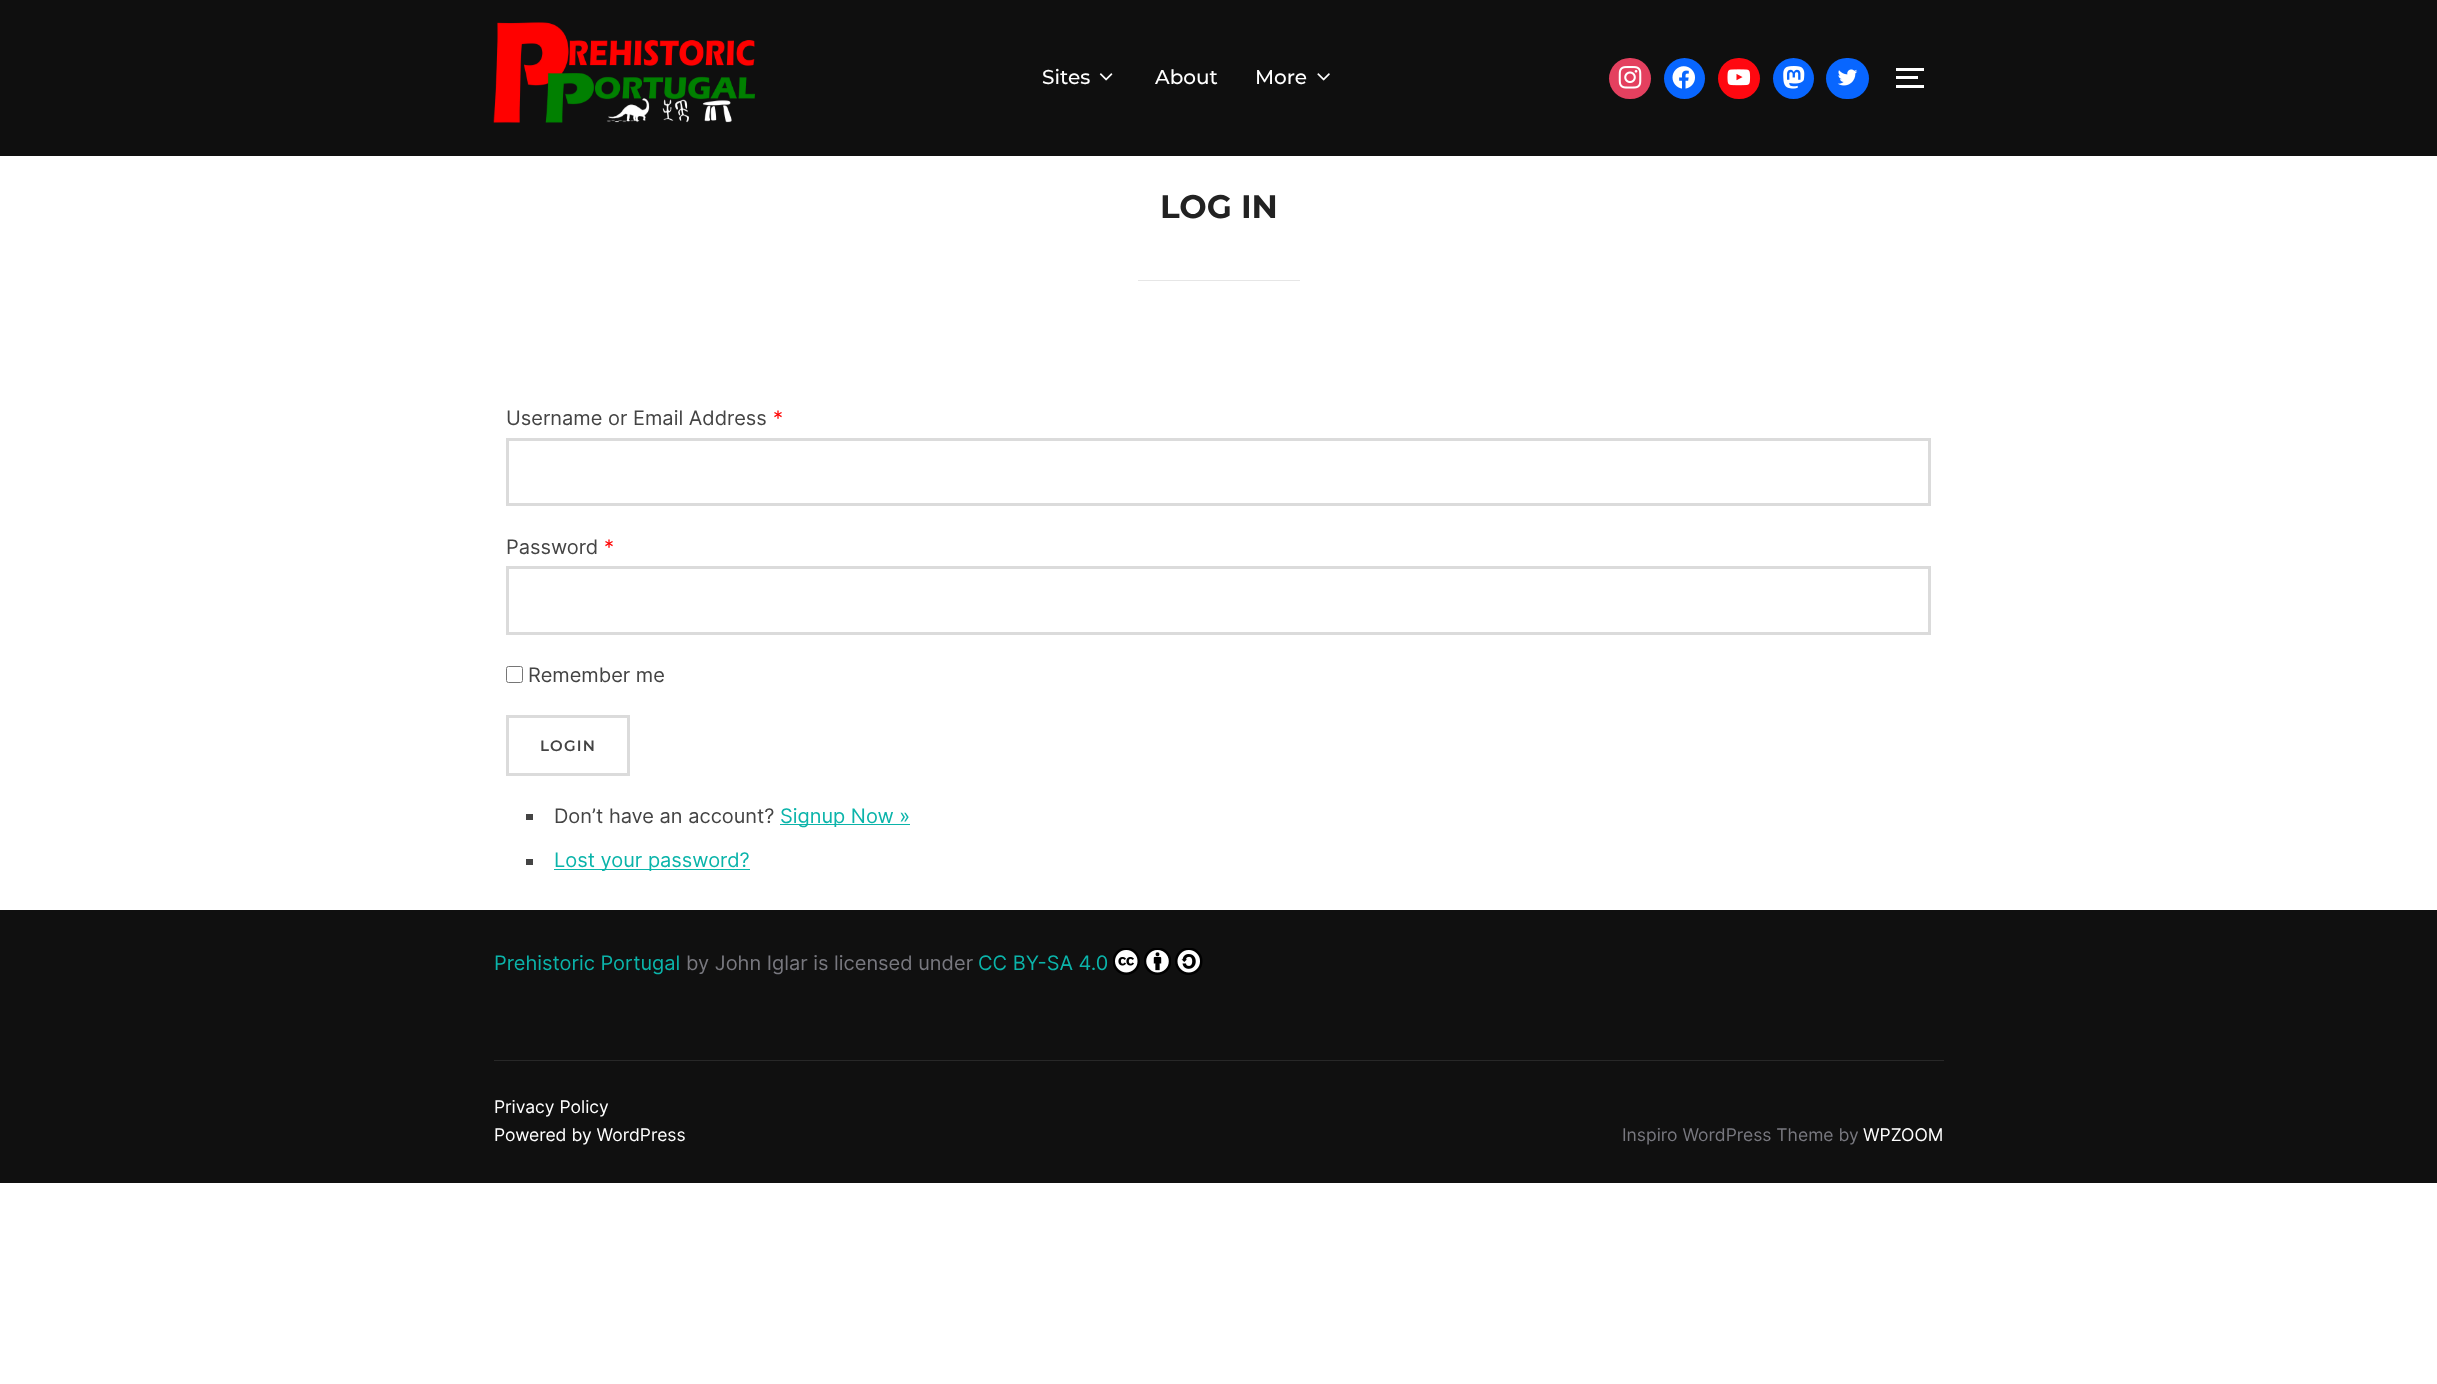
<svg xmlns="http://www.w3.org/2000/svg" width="2437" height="1384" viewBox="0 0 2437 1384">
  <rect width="100%" height="100%" fill="#ffffff"/>
  <rect x="0" y="0" width="2437" height="156" fill="#0f0f0f"/>
  <image x="493" y="22" width="262" height="101" href="img1.png"/>
  <text x="1042" y="84" font-family="Montserrat" font-size="20" font-weight="500" fill="#ffffff">Sites</text>
  <image x="1099" y="73" width="14" height="8" href="img2.png"/>
  <text x="1155" y="84" font-family="Montserrat" font-size="20" font-weight="500" fill="#ffffff">About</text>
  <text x="1255" y="84" font-family="Montserrat" font-size="20" font-weight="500" fill="#ffffff">More</text>
  <image x="1317" y="73" width="13" height="8" href="img3.png"/>
  <rect x="1609" y="58" width="42" height="41" rx="20.5" fill="#e4405f"/>
  <image x="1618" y="66" width="24" height="23" href="img4.png"/>
  <circle cx="1684.5" cy="78.5" r="20.5" fill="#0866ff"/>
  <image x="1672" y="66" width="23" height="23" href="img5.png"/>
  <rect x="1718" y="58" width="42" height="41" rx="20.5" fill="#ff0810"/>
  <image x="1727" y="69" width="24" height="17" href="img6.png"/>
  <circle cx="1793.5" cy="78.5" r="20.5" fill="#0866ff"/>
  <image x="1783" y="66" width="22" height="23" href="img7.png"/>
  <rect x="1826" y="58" width="43" height="41" rx="20.5" fill="#0866ff"/>
  <image x="1837" y="69" width="21" height="17" href="img8.png"/>
  <rect x="1896" y="68" width="28" height="3" fill="#ffffff"/>
  <rect x="1896" y="76" width="22" height="3" fill="#ffffff"/>
  <rect x="1896" y="85" width="28" height="3" fill="#ffffff"/>
  <text x="1160" y="218" font-family="Montserrat" font-size="32.5" font-weight="bold" fill="#222222">LOG IN</text>
  <rect x="1138" y="280" width="162" height="1" fill="#e6e6e6"/>
  <text x="506" y="425" font-family="Inter" font-size="20" fill="#444444">Username or Email Address</text>
  <text x="773" y="425" font-family="Inter" font-size="20" fill="#ff0000">*</text>
  <rect x="507.5" y="439.5" width="1422" height="65" fill="none" stroke="#dbdbdb" stroke-width="3"/>
  <text x="506" y="554" font-family="Inter" font-size="20" fill="#444444">Password</text>
  <text x="604" y="554" font-family="Inter" font-size="20" fill="#ff0000">*</text>
  <rect x="507.5" y="567.5" width="1422" height="66" fill="none" stroke="#dbdbdb" stroke-width="3"/>
  <rect x="506.5" y="666.5" width="16" height="16" rx="2" fill="none" stroke="#767676"/>
  <text x="528" y="682" font-family="Inter" font-size="20" fill="#444444">Remember me</text>
  <rect x="507.5" y="716.5" width="121" height="58" fill="none" stroke="#dbdbdb" stroke-width="3"/>
  <text x="540" y="751" font-family="Montserrat" font-size="15" font-weight="600" letter-spacing="1.25" fill="#444444">LOGIN</text>
  <rect x="526" y="814" width="7" height="6" fill="#444444"/>
  <text x="554" y="823" font-family="Inter" font-size="20" fill="#444444">Don’t have an account?</text>
  <rect x="780" y="824" width="130" height="1" fill="#0bb4aa"/>
  <text x="780" y="823" font-family="Inter" font-size="20" fill="#0bb4aa">Signup Now »</text>
  <rect x="526" y="859" width="7" height="6" fill="#444444"/>
  <rect x="554" y="869" width="196" height="1" fill="#0bb4aa"/>
  <text x="554" y="867" font-family="Inter" font-size="20" fill="#0bb4aa">Lost your password?</text>
  <rect x="0" y="910" width="2437" height="273" fill="#101010"/>
  <text x="494" y="970" font-family="Inter" font-size="20" fill="#0bb4aa">Prehistoric Portugal</text>
  <text x="686" y="970" font-family="Inter" font-size="20" fill="#78787f">by John Iglar is licensed under</text>
  <text x="978" y="970" font-family="Inter" font-size="20" fill="#0bb4aa">CC BY-SA 4.0</text>
  <image x="1113" y="948" width="27" height="27" href="img9.png"/>
  <image x="1144" y="948" width="27" height="27" href="img10.png"/>
  <image x="1175" y="948" width="28" height="27" href="img11.png"/>
  <rect x="494" y="1060" width="1450" height="1" fill="#282828"/>
  <text x="494" y="1113" font-family="Inter" font-size="17.5" fill="#ffffff">Privacy Policy</text>
  <text x="494" y="1141" font-family="Inter" font-size="17.5" fill="#ffffff">Powered by WordPress</text>
  <text x="1622" y="1141" font-family="Inter" font-size="17.5" fill="#78787f">Inspiro WordPress Theme by</text>
  <text x="1863" y="1141" font-family="Inter" font-size="17.5" fill="#ffffff">WPZOOM</text>
</svg>
